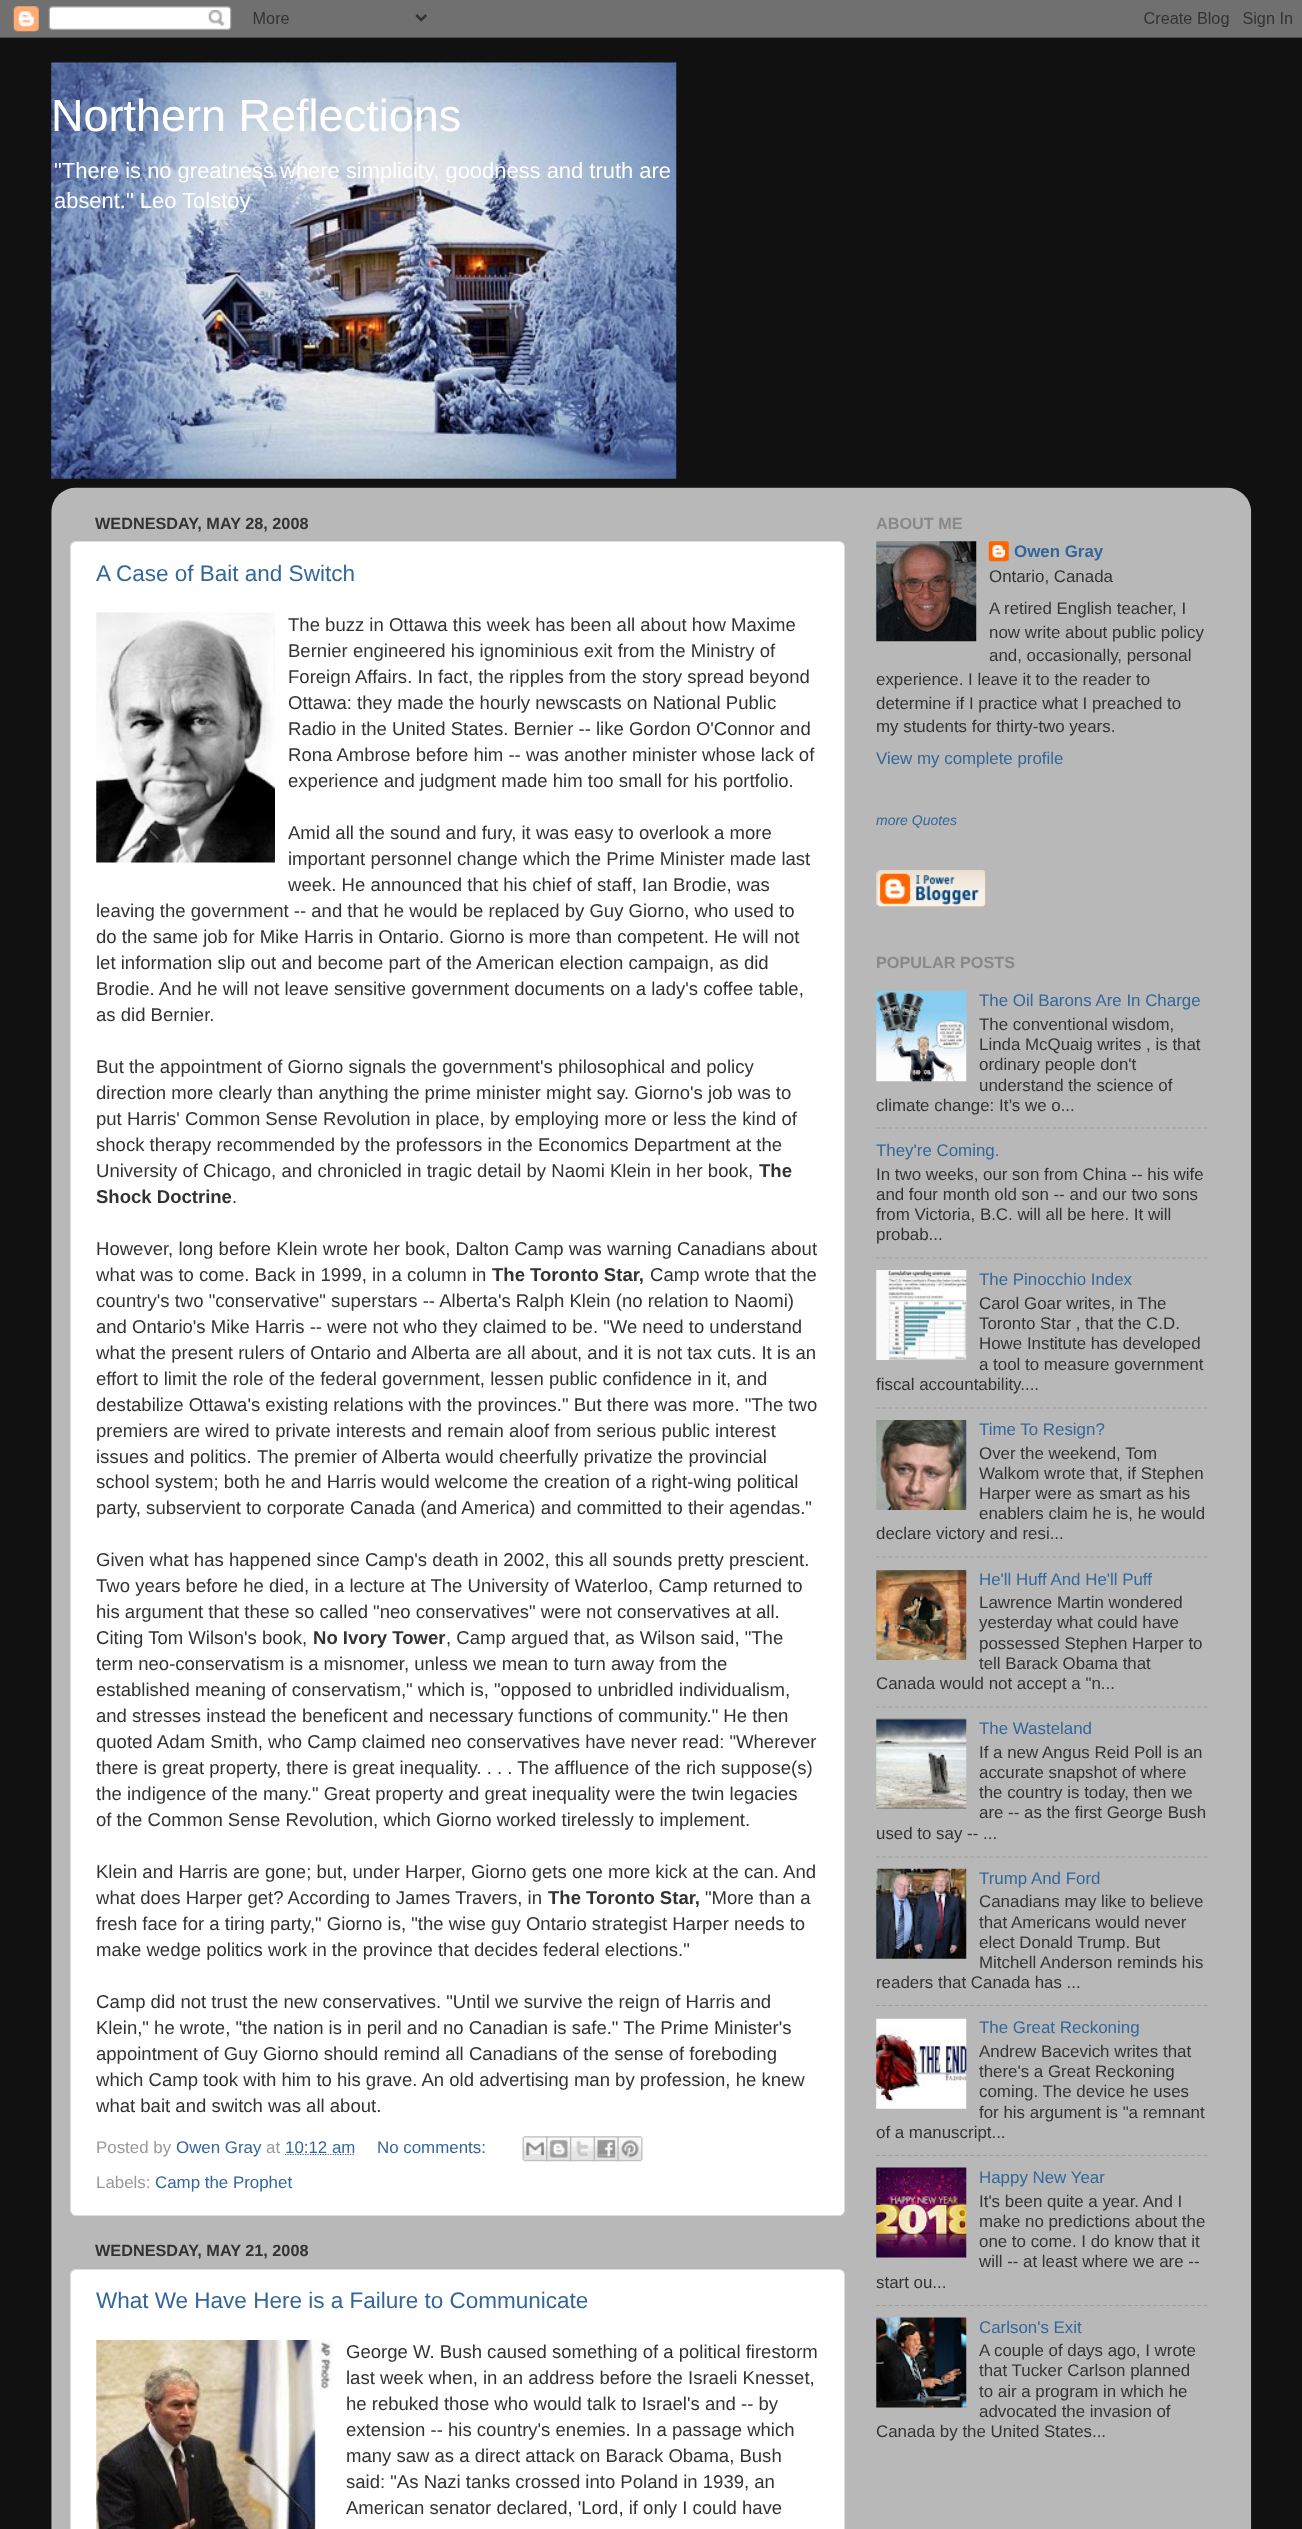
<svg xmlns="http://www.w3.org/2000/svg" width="1302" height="2529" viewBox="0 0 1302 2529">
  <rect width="100%" height="100%" fill="#111111"/>
  <image x="0" y="0" width="1302" height="38" href="img1.png"/>
  <image x="51" y="62" width="626" height="417" href="img2.png"/>
  <text x="51" y="131" font-family="Liberation Sans" font-size="45" fill="#ffffff">Northern Reflections</text>
  <text x="54" y="178" font-family="Liberation Sans" font-size="21.95" fill="#ffffff">"There is no greatness where simplicity, goodness and truth are</text>
  <text x="54" y="208" font-family="Liberation Sans" font-size="21.95" fill="#ffffff">absent." Leo Tolstoy</text>
  <image x="51" y="487" width="1201" height="2042" href="img3.png"/>
  <text x="95" y="529" font-family="Liberation Sans" font-size="16.25" font-weight="bold" fill="#333333">WEDNESDAY, MAY 28, 2008</text>
  <rect x="70.5" y="541.5" width="774" height="1674" rx="5.5" fill="#ffffff" stroke="#dddddd"/>
  <text x="96" y="581" font-family="Liberation Sans" font-size="22.5" fill="#336699">A Case of Bait and Switch</text>
  <image x="96" y="612" width="179" height="251" href="img4.png"/>
  <text x="288" y="631" font-family="Liberation Sans" font-size="18.55" fill="#333333">The buzz in Ottawa this week has been all about how Maxime</text>
  <text x="288" y="657" font-family="Liberation Sans" font-size="18.55" fill="#333333">Bernier engineered his ignominious exit from the Ministry of</text>
  <text x="288" y="683" font-family="Liberation Sans" font-size="18.55" fill="#333333">Foreign Affairs. In fact, the ripples from the story spread beyond</text>
  <text x="288" y="709" font-family="Liberation Sans" font-size="18.55" fill="#333333">Ottawa: they made the hourly newscasts on National Public</text>
  <text x="288" y="735" font-family="Liberation Sans" font-size="18.55" fill="#333333">Radio in the United States. Bernier -- like Gordon O'Connor and</text>
  <text x="288" y="761" font-family="Liberation Sans" font-size="18.55" fill="#333333">Rona Ambrose before him -- was another minister whose lack of</text>
  <text x="288" y="787" font-family="Liberation Sans" font-size="18.55" fill="#333333">experience and judgment made him too small for his portfolio.</text>
  <text x="288" y="839" font-family="Liberation Sans" font-size="18.55" fill="#333333">Amid all the sound and fury, it was easy to overlook a more</text>
  <text x="288" y="865" font-family="Liberation Sans" font-size="18.55" fill="#333333">important personnel change which the Prime Minister made last</text>
  <text x="288" y="891" font-family="Liberation Sans" font-size="18.55" fill="#333333">week. He announced that his chief of staff, Ian Brodie, was</text>
  <text x="96" y="917" font-family="Liberation Sans" font-size="18.55" fill="#333333">leaving the government -- and that he would be replaced by Guy Giorno, who used to</text>
  <text x="96" y="943" font-family="Liberation Sans" font-size="18.55" fill="#333333">do the same job for Mike Harris in Ontario. Giorno is more than competent. He will not</text>
  <text x="96" y="969" font-family="Liberation Sans" font-size="18.55" fill="#333333">let information slip out and become part of the American election campaign, as did</text>
  <text x="96" y="995" font-family="Liberation Sans" font-size="18.55" fill="#333333">Brodie. And he will not leave sensitive government documents on a lady's coffee table,</text>
  <text x="96" y="1021" font-family="Liberation Sans" font-size="18.55" fill="#333333">as did Bernier.</text>
  <text x="96" y="1073" font-family="Liberation Sans" font-size="18.55" fill="#333333">But the appointment of Giorno signals the government's philosophical and policy</text>
  <text x="96" y="1099" font-family="Liberation Sans" font-size="18.55" fill="#333333">direction more clearly than anything the prime minister might say. Giorno's job was to</text>
  <text x="96" y="1125" font-family="Liberation Sans" font-size="18.55" fill="#333333">put Harris' Common Sense Revolution in place, by employing more or less the kind of</text>
  <text x="96" y="1151" font-family="Liberation Sans" font-size="18.55" fill="#333333">shock therapy recommended by the professors in the Economics Department at the</text>
  <text x="96" y="1177" font-family="Liberation Sans" font-size="18.55" fill="#333333">University of Chicago, and chronicled in tragic detail by Naomi Klein in her book,</text>
  <text x="759" y="1177" font-family="Liberation Sans" font-size="18.55" font-weight="bold" fill="#333333">The</text>
  <text x="96" y="1203" font-family="Liberation Sans" font-size="18.55" font-weight="bold" fill="#333333">Shock Doctrine</text>
  <text x="232" y="1203" font-family="Liberation Sans" font-size="18.55" fill="#333333">.</text>
  <text x="96" y="1255" font-family="Liberation Sans" font-size="18.55" fill="#333333">However, long before Klein wrote her book, Dalton Camp was warning Canadians about</text>
  <text x="96" y="1281" font-family="Liberation Sans" font-size="18.55" fill="#333333">what was to come. Back in 1999, in a column in</text>
  <text x="492" y="1281" font-family="Liberation Sans" font-size="18.55" font-weight="bold" fill="#333333">The Toronto Star,</text>
  <text x="650" y="1281" font-family="Liberation Sans" font-size="18.55" fill="#333333">Camp wrote that the</text>
  <text x="96" y="1307" font-family="Liberation Sans" font-size="18.55" fill="#333333">country's two "conservative" superstars -- Alberta's Ralph Klein (no relation to Naomi)</text>
  <text x="96" y="1333" font-family="Liberation Sans" font-size="18.55" fill="#333333">and Ontario's Mike Harris -- were not who they claimed to be. "We need to understand</text>
  <text x="96" y="1359" font-family="Liberation Sans" font-size="18.55" fill="#333333">what the present rulers of Ontario and Alberta are all about, and it is not tax cuts. It is an</text>
  <text x="96" y="1385" font-family="Liberation Sans" font-size="18.55" fill="#333333">effort to limit the role of the federal government, lessen public confidence in it, and</text>
  <text x="96" y="1411" font-family="Liberation Sans" font-size="18.55" fill="#333333">destabilize Ottawa's existing relations with the provinces." But there was more. "The two</text>
  <text x="96" y="1437" font-family="Liberation Sans" font-size="18.55" fill="#333333">premiers are wired to private interests and remain aloof from serious public interest</text>
  <text x="96" y="1463" font-family="Liberation Sans" font-size="18.55" fill="#333333">issues and politics.</text>
  <text x="257" y="1463" font-family="Liberation Sans" font-size="18.55" fill="#333333">The premier of Alberta would cheerfully privatize the provincial</text>
  <text x="96" y="1488" font-family="Liberation Sans" font-size="18.55" fill="#333333">school system; both he and Harris would welcome the creation of a right-wing political</text>
  <text x="96" y="1514" font-family="Liberation Sans" font-size="18.55" fill="#333333">party, subservient to corporate Canada (and America) and committed to their agendas."</text>
  <text x="96" y="1566" font-family="Liberation Sans" font-size="18.55" fill="#333333">Given what has happened since Camp's death in 2002, this all sounds pretty prescient.</text>
  <text x="96" y="1592" font-family="Liberation Sans" font-size="18.55" fill="#333333">Two years before he died, in a lecture at The University of Waterloo, Camp returned to</text>
  <text x="96" y="1618" font-family="Liberation Sans" font-size="18.55" fill="#333333">his argument that these so called "neo conservatives" were not conservatives at all.</text>
  <text x="96" y="1644" font-family="Liberation Sans" font-size="18.55" fill="#333333">Citing Tom Wilson's book,</text>
  <text x="313" y="1644" font-family="Liberation Sans" font-size="18.55" font-weight="bold" fill="#333333">No Ivory Tower</text>
  <text x="446" y="1644" font-family="Liberation Sans" font-size="18.55" fill="#333333">, Camp argued that, as Wilson said, "The</text>
  <text x="96" y="1670" font-family="Liberation Sans" font-size="18.55" fill="#333333">term neo-conservatism is a misnomer, unless we mean to turn away from the</text>
  <text x="96" y="1696" font-family="Liberation Sans" font-size="18.55" fill="#333333">established meaning of conservatism," which is, "opposed to unbridled individualism,</text>
  <text x="96" y="1722" font-family="Liberation Sans" font-size="18.55" fill="#333333">and stresses instead the beneficent and necessary functions of community." He then</text>
  <text x="96" y="1748" font-family="Liberation Sans" font-size="18.55" fill="#333333">quoted Adam Smith, who Camp claimed neo conservatives have never read: "Wherever</text>
  <text x="96" y="1774" font-family="Liberation Sans" font-size="18.55" fill="#333333">there is great property, there is great inequality. . . . The affluence of the rich suppose(s)</text>
  <text x="96" y="1800" font-family="Liberation Sans" font-size="18.55" fill="#333333">the indigence of the many." Great property and great inequality were the twin legacies</text>
  <text x="96" y="1826" font-family="Liberation Sans" font-size="18.55" fill="#333333">of the Common Sense Revolution, which Giorno worked tirelessly to implement.</text>
  <text x="96" y="1878" font-family="Liberation Sans" font-size="18.55" fill="#333333">Klein and Harris are gone; but, under Harper, Giorno gets one more kick at the can. And</text>
  <text x="96" y="1904" font-family="Liberation Sans" font-size="18.55" fill="#333333">what does Harper get? According to James Travers, in</text>
  <text x="548" y="1904" font-family="Liberation Sans" font-size="18.55" font-weight="bold" fill="#333333">The Toronto Star,</text>
  <text x="705" y="1904" font-family="Liberation Sans" font-size="18.55" fill="#333333">"More than a</text>
  <text x="96" y="1930" font-family="Liberation Sans" font-size="18.55" fill="#333333">fresh face for a tiring party," Giorno is, "the wise guy Ontario strategist Harper needs to</text>
  <text x="96" y="1956" font-family="Liberation Sans" font-size="18.55" fill="#333333">make wedge politics work in the province that decides federal elections."</text>
  <text x="96" y="2008" font-family="Liberation Sans" font-size="18.55" fill="#333333">Camp did not trust the new conservatives. "Until we survive the reign of Harris and</text>
  <text x="96" y="2034" font-family="Liberation Sans" font-size="18.55" fill="#333333">Klein," he wrote, "the nation is in peril and no Canadian is safe." The Prime Minister's</text>
  <text x="96" y="2060" font-family="Liberation Sans" font-size="18.55" fill="#333333">appointment of Guy Giorno should remind all Canadians of the sense of foreboding</text>
  <text x="96" y="2086" font-family="Liberation Sans" font-size="18.55" fill="#333333">which Camp took with him to his grave. An old advertising man by profession, he knew</text>
  <text x="96" y="2112" font-family="Liberation Sans" font-size="18.55" fill="#333333">what bait and switch was all about.</text>
  <text x="96" y="2153" font-family="Liberation Sans" font-size="16.9" fill="#999999">Posted by</text>
  <text x="176" y="2153" font-family="Liberation Sans" font-size="16.9" fill="#336699">Owen Gray</text>
  <text x="266" y="2153" font-family="Liberation Sans" font-size="16.9" fill="#999999">at</text>
  <path d="M285 2154.5H355" fill="none" stroke="#336699" stroke-width="1.2" stroke-dasharray="1.25 1.25"/>
  <text x="285" y="2153" font-family="Liberation Sans" font-size="16.9" fill="#336699">10:12 am</text>
  <text x="377" y="2153" font-family="Liberation Sans" font-size="16.9" fill="#336699">No comments:</text>
  <image x="522" y="2136" width="26" height="26" href="img5.png"/>
  <image x="546" y="2136" width="26" height="26" href="img6.png"/>
  <image x="570" y="2136" width="25" height="26" href="img7.png"/>
  <image x="593" y="2136" width="26" height="26" href="img8.png"/>
  <image x="617" y="2136" width="26" height="26" href="img9.png"/>
  <text x="96" y="2188" font-family="Liberation Sans" font-size="16.9" fill="#999999">Labels:</text>
  <text x="155" y="2188" font-family="Liberation Sans" font-size="16.9" fill="#336699">Camp the Prophet</text>
  <text x="95" y="2256" font-family="Liberation Sans" font-size="16.25" font-weight="bold" fill="#333333">WEDNESDAY, MAY 21, 2008</text>
  <rect x="70.5" y="2269.5" width="774" height="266" rx="5.5" fill="#ffffff" stroke="#dddddd"/>
  <text x="96" y="2308" font-family="Liberation Sans" font-size="22.5" fill="#336699">What We Have Here is a Failure to Communicate</text>
  <image x="96" y="2340" width="238" height="189" href="img10.png"/>
  <text x="346" y="2358" font-family="Liberation Sans" font-size="18.55" fill="#333333">George W. Bush caused something of a political firestorm</text>
  <text x="346" y="2384" font-family="Liberation Sans" font-size="18.55" fill="#333333">last week when, in an address before the Israeli Knesset,</text>
  <text x="346" y="2410" font-family="Liberation Sans" font-size="18.55" fill="#333333">he rebuked those who would talk to Israel's and -- by</text>
  <text x="346" y="2436" font-family="Liberation Sans" font-size="18.55" fill="#333333">extension -- his country's enemies. In a passage which</text>
  <text x="346" y="2462" font-family="Liberation Sans" font-size="18.55" fill="#333333">many saw as a direct attack on Barack Obama, Bush</text>
  <text x="346" y="2488" font-family="Liberation Sans" font-size="18.55" fill="#333333">said: "As Nazi tanks crossed into Poland in 1939, an</text>
  <text x="346" y="2514" font-family="Liberation Sans" font-size="18.55" fill="#333333">American senator declared, 'Lord, if only I could have</text>
  <text x="876" y="529" font-family="Liberation Sans" font-size="16.25" font-weight="bold" fill="#888888">ABOUT ME</text>
  <image x="876" y="541" width="101" height="101" href="img11.png"/>
  <image x="988" y="541" width="21" height="21" href="img12.png"/>
  <text x="1014" y="557" font-family="Liberation Sans" font-size="16.9" font-weight="bold" fill="#336699">Owen Gray</text>
  <text x="989" y="582" font-family="Liberation Sans" font-size="16.9" fill="#333333">Ontario, Canada</text>
  <text x="989" y="614" font-family="Liberation Sans" font-size="16.9" fill="#333333">A retired English teacher, I</text>
  <text x="989" y="638" font-family="Liberation Sans" font-size="16.9" fill="#333333">now write about public policy</text>
  <text x="989" y="661" font-family="Liberation Sans" font-size="16.9" fill="#333333">and, occasionally, personal</text>
  <text x="876" y="685" font-family="Liberation Sans" font-size="16.9" fill="#333333">experience. I leave it to the reader to</text>
  <text x="876" y="709" font-family="Liberation Sans" font-size="16.9" fill="#333333">determine if I practice what I preached to</text>
  <text x="876" y="732" font-family="Liberation Sans" font-size="16.9" fill="#333333">my students for thirty-two years.</text>
  <text x="876" y="764" font-family="Liberation Sans" font-size="16.9" fill="#336699">View my complete profile</text>
  <text x="876" y="825" font-family="Liberation Sans" font-size="14" font-style="italic" fill="#336699">more Quotes</text>
  <image x="876" y="870" width="111" height="38" href="img13.png"/>
  <text x="876" y="968" font-family="Liberation Sans" font-size="16.25" font-weight="bold" fill="#888888">POPULAR POSTS</text>
  <image x="876" y="991" width="91" height="91" href="img14.png"/>
  <text x="979" y="1006" font-family="Liberation Sans" font-size="16.9" fill="#336699">The Oil Barons Are In Charge</text>
  <text x="979" y="1030" font-family="Liberation Sans" font-size="16.9" fill="#333333">The conventional wisdom,</text>
  <text x="979" y="1050" font-family="Liberation Sans" font-size="16.9" fill="#333333">Linda McQuaig writes , is that</text>
  <text x="979" y="1070" font-family="Liberation Sans" font-size="16.9" fill="#333333">ordinary people don't</text>
  <text x="979" y="1091" font-family="Liberation Sans" font-size="16.9" fill="#333333">understand the science of</text>
  <text x="876" y="1111" font-family="Liberation Sans" font-size="16.9" fill="#333333">climate change: It’s we o...</text>
  <path d="M876 1128H1207.5" fill="none" stroke="#9c9c9c" stroke-width="1.2" stroke-dasharray="3.75 2.55"/>
  <text x="876" y="1156" font-family="Liberation Sans" font-size="16.9" fill="#336699">They're Coming.</text>
  <text x="876" y="1180" font-family="Liberation Sans" font-size="16.9" fill="#333333">In two weeks, our son from China -- his wife</text>
  <text x="876" y="1200" font-family="Liberation Sans" font-size="16.9" fill="#333333">and four month old son -- and our two sons</text>
  <text x="876" y="1220" font-family="Liberation Sans" font-size="16.9" fill="#333333">from Victoria, B.C. will all be here. It will</text>
  <text x="876" y="1240" font-family="Liberation Sans" font-size="16.9" fill="#333333">probab...</text>
  <path d="M876 1258H1207.5" fill="none" stroke="#9c9c9c" stroke-width="1.2" stroke-dasharray="3.75 2.55"/>
  <image x="876" y="1270" width="91" height="90" href="img15.png"/>
  <text x="979" y="1285" font-family="Liberation Sans" font-size="16.9" fill="#336699">The Pinocchio Index</text>
  <text x="979" y="1309" font-family="Liberation Sans" font-size="16.9" fill="#333333">Carol Goar writes, in The</text>
  <text x="979" y="1329" font-family="Liberation Sans" font-size="16.9" fill="#333333">Toronto Star , that the C.D.</text>
  <text x="979" y="1349" font-family="Liberation Sans" font-size="16.9" fill="#333333">Howe Institute has developed</text>
  <text x="979" y="1370" font-family="Liberation Sans" font-size="16.9" fill="#333333">a tool to measure government</text>
  <text x="876" y="1390" font-family="Liberation Sans" font-size="16.9" fill="#333333">fiscal accountability....</text>
  <path d="M876 1408H1207.5" fill="none" stroke="#9c9c9c" stroke-width="1.2" stroke-dasharray="3.75 2.55"/>
  <image x="876" y="1420" width="91" height="90" href="img16.png"/>
  <text x="979" y="1435" font-family="Liberation Sans" font-size="16.9" fill="#336699">Time To Resign?</text>
  <text x="979" y="1459" font-family="Liberation Sans" font-size="16.9" fill="#333333">Over the weekend, Tom</text>
  <text x="979" y="1479" font-family="Liberation Sans" font-size="16.9" fill="#333333">Walkom wrote that, if Stephen</text>
  <text x="979" y="1499" font-family="Liberation Sans" font-size="16.9" fill="#333333">Harper were as smart as his</text>
  <text x="979" y="1519" font-family="Liberation Sans" font-size="16.9" fill="#333333">enablers claim he is, he would</text>
  <text x="876" y="1539" font-family="Liberation Sans" font-size="16.9" fill="#333333">declare victory and resi...</text>
  <path d="M876 1557H1207.5" fill="none" stroke="#9c9c9c" stroke-width="1.2" stroke-dasharray="3.75 2.55"/>
  <image x="876" y="1570" width="91" height="90" href="img17.png"/>
  <text x="979" y="1585" font-family="Liberation Sans" font-size="16.9" fill="#336699">He'll Huff And He'll Puff</text>
  <text x="979" y="1608" font-family="Liberation Sans" font-size="16.9" fill="#333333">Lawrence Martin wondered</text>
  <text x="979" y="1628" font-family="Liberation Sans" font-size="16.9" fill="#333333">yesterday what could have</text>
  <text x="979" y="1649" font-family="Liberation Sans" font-size="16.9" fill="#333333">possessed Stephen Harper to</text>
  <text x="979" y="1669" font-family="Liberation Sans" font-size="16.9" fill="#333333">tell Barack Obama that</text>
  <text x="876" y="1689" font-family="Liberation Sans" font-size="16.9" fill="#333333">Canada would not accept a "n...</text>
  <path d="M876 1707H1207.5" fill="none" stroke="#9c9c9c" stroke-width="1.2" stroke-dasharray="3.75 2.55"/>
  <image x="876" y="1718" width="91" height="91" href="img18.png"/>
  <text x="979" y="1734" font-family="Liberation Sans" font-size="16.9" fill="#336699">The Wasteland</text>
  <text x="979" y="1758" font-family="Liberation Sans" font-size="16.9" fill="#333333">If a new Angus Reid Poll is an</text>
  <text x="979" y="1778" font-family="Liberation Sans" font-size="16.9" fill="#333333">accurate snapshot of where</text>
  <text x="979" y="1798" font-family="Liberation Sans" font-size="16.9" fill="#333333">the country is today, then we</text>
  <text x="979" y="1818" font-family="Liberation Sans" font-size="16.9" fill="#333333">are -- as the first George Bush</text>
  <text x="876" y="1839" font-family="Liberation Sans" font-size="16.9" fill="#333333">used to say -- ...</text>
  <path d="M876 1857H1207.5" fill="none" stroke="#9c9c9c" stroke-width="1.2" stroke-dasharray="3.75 2.55"/>
  <image x="876" y="1868" width="91" height="91" href="img19.png"/>
  <text x="979" y="1884" font-family="Liberation Sans" font-size="16.9" fill="#336699">Trump And Ford</text>
  <text x="979" y="1907" font-family="Liberation Sans" font-size="16.9" fill="#333333">Canadians may like to believe</text>
  <text x="979" y="1928" font-family="Liberation Sans" font-size="16.9" fill="#333333">that Americans would never</text>
  <text x="979" y="1948" font-family="Liberation Sans" font-size="16.9" fill="#333333">elect Donald Trump. But</text>
  <text x="979" y="1968" font-family="Liberation Sans" font-size="16.9" fill="#333333">Mitchell Anderson reminds his</text>
  <text x="876" y="1988" font-family="Liberation Sans" font-size="16.9" fill="#333333">readers that Canada has ...</text>
  <path d="M876 2005.5H1207.5" fill="none" stroke="#9c9c9c" stroke-width="1.2" stroke-dasharray="3.75 2.55"/>
  <image x="876" y="2018" width="91" height="91" href="img20.png"/>
  <text x="979" y="2033" font-family="Liberation Sans" font-size="16.9" fill="#336699">The Great Reckoning</text>
  <text x="979" y="2057" font-family="Liberation Sans" font-size="16.9" fill="#333333">Andrew Bacevich writes that</text>
  <text x="979" y="2077" font-family="Liberation Sans" font-size="16.9" fill="#333333">there's a Great Reckoning</text>
  <text x="979" y="2097" font-family="Liberation Sans" font-size="16.9" fill="#333333">coming. The device he uses</text>
  <text x="979" y="2118" font-family="Liberation Sans" font-size="16.9" fill="#333333">for his argument is "a remnant</text>
  <text x="876" y="2138" font-family="Liberation Sans" font-size="16.9" fill="#333333">of a manuscript...</text>
  <path d="M876 2155.5H1207.5" fill="none" stroke="#9c9c9c" stroke-width="1.2" stroke-dasharray="3.75 2.55"/>
  <image x="876" y="2167" width="91" height="91" href="img21.png"/>
  <text x="979" y="2183" font-family="Liberation Sans" font-size="16.9" fill="#336699">Happy New Year</text>
  <text x="979" y="2207" font-family="Liberation Sans" font-size="16.9" fill="#333333">It's been quite a year. And I</text>
  <text x="979" y="2227" font-family="Liberation Sans" font-size="16.9" fill="#333333">make no predictions about the</text>
  <text x="979" y="2247" font-family="Liberation Sans" font-size="16.9" fill="#333333">one to come. I do know that it</text>
  <text x="979" y="2267" font-family="Liberation Sans" font-size="16.9" fill="#333333">will -- at least where we are --</text>
  <text x="876" y="2288" font-family="Liberation Sans" font-size="16.9" fill="#333333">start ou...</text>
  <path d="M876 2305.5H1207.5" fill="none" stroke="#9c9c9c" stroke-width="1.2" stroke-dasharray="3.75 2.55"/>
  <image x="876" y="2317" width="91" height="91" href="img22.png"/>
  <text x="979" y="2333" font-family="Liberation Sans" font-size="16.9" fill="#336699">Carlson's Exit</text>
  <text x="979" y="2356" font-family="Liberation Sans" font-size="16.9" fill="#333333">A couple of days ago, I wrote</text>
  <text x="979" y="2376" font-family="Liberation Sans" font-size="16.9" fill="#333333">that Tucker Carlson planned</text>
  <text x="979" y="2397" font-family="Liberation Sans" font-size="16.9" fill="#333333">to air a program in which he</text>
  <text x="979" y="2417" font-family="Liberation Sans" font-size="16.9" fill="#333333">advocated the invasion of</text>
  <text x="876" y="2437" font-family="Liberation Sans" font-size="16.9" fill="#333333">Canada by the United States...</text>
</svg>
